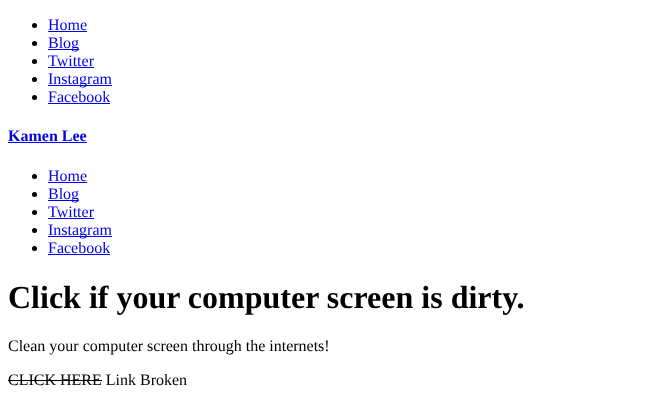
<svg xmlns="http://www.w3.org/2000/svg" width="666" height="403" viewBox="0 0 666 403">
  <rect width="100%" height="100%" fill="#ffffff"/>
  <circle cx="34.5" cy="25.5" r="2.5" fill="#000000"/>
  <text x="48" y="30" font-family="Liberation Serif" font-size="16" fill="#0000ee">Home</text>
  <rect x="48" y="31" width="39" height="1" fill="#0000ee"/>
  <circle cx="34.5" cy="43.5" r="2.5" fill="#000000"/>
  <rect x="48" y="49" width="31" height="1" fill="#0000ee"/>
  <text x="48" y="48" font-family="Liberation Serif" font-size="16" fill="#0000ee">Blog</text>
  <circle cx="34.5" cy="61.5" r="2.5" fill="#000000"/>
  <text x="48" y="66" font-family="Liberation Serif" font-size="16" fill="#0000ee">Twitter</text>
  <rect x="48" y="67" width="46" height="1" fill="#0000ee"/>
  <circle cx="34.5" cy="79.5" r="2.5" fill="#000000"/>
  <rect x="48" y="85" width="64" height="1" fill="#0000ee"/>
  <text x="48" y="84" font-family="Liberation Serif" font-size="16" fill="#0000ee">Instagram</text>
  <circle cx="34.5" cy="97.5" r="2.5" fill="#000000"/>
  <text x="48" y="102" font-family="Liberation Serif" font-size="16" fill="#0000ee">Facebook</text>
  <rect x="48" y="103" width="62" height="1" fill="#0000ee"/>
  <text x="8" y="141" font-family="Liberation Serif" font-size="16" font-weight="bold" fill="#0000ee">Kamen Lee</text>
  <rect x="8" y="142" width="79" height="1" fill="#0000ee"/>
  <circle cx="34.5" cy="176.5" r="2.5" fill="#000000"/>
  <text x="48" y="181" font-family="Liberation Serif" font-size="16" fill="#0000ee">Home</text>
  <rect x="48" y="182" width="39" height="1" fill="#0000ee"/>
  <circle cx="34.5" cy="194.5" r="2.5" fill="#000000"/>
  <rect x="48" y="200" width="31" height="1" fill="#0000ee"/>
  <text x="48" y="199" font-family="Liberation Serif" font-size="16" fill="#0000ee">Blog</text>
  <circle cx="34.5" cy="212.5" r="2.5" fill="#000000"/>
  <text x="48" y="217" font-family="Liberation Serif" font-size="16" fill="#0000ee">Twitter</text>
  <rect x="48" y="218" width="46" height="1" fill="#0000ee"/>
  <circle cx="34.5" cy="230.5" r="2.5" fill="#000000"/>
  <rect x="48" y="236" width="64" height="1" fill="#0000ee"/>
  <text x="48" y="235" font-family="Liberation Serif" font-size="16" fill="#0000ee">Instagram</text>
  <circle cx="34.5" cy="248.5" r="2.5" fill="#000000"/>
  <text x="48" y="253" font-family="Liberation Serif" font-size="16" fill="#0000ee">Facebook</text>
  <rect x="48" y="254" width="62" height="1" fill="#0000ee"/>
  <text x="8" y="308" font-family="Liberation Serif" font-size="32" font-weight="bold" fill="#000000">Click if your computer screen is dirty.</text>
  <text x="8" y="351" font-family="Liberation Serif" font-size="16" fill="#000000">Clean your computer screen through the internets!</text>
  <text x="8" y="385" font-family="Liberation Serif" font-size="16" fill="#000000">CLICK HERE Link Broken</text>
  <rect x="8" y="380" width="94" height="1" fill="#000000"/>
</svg>
